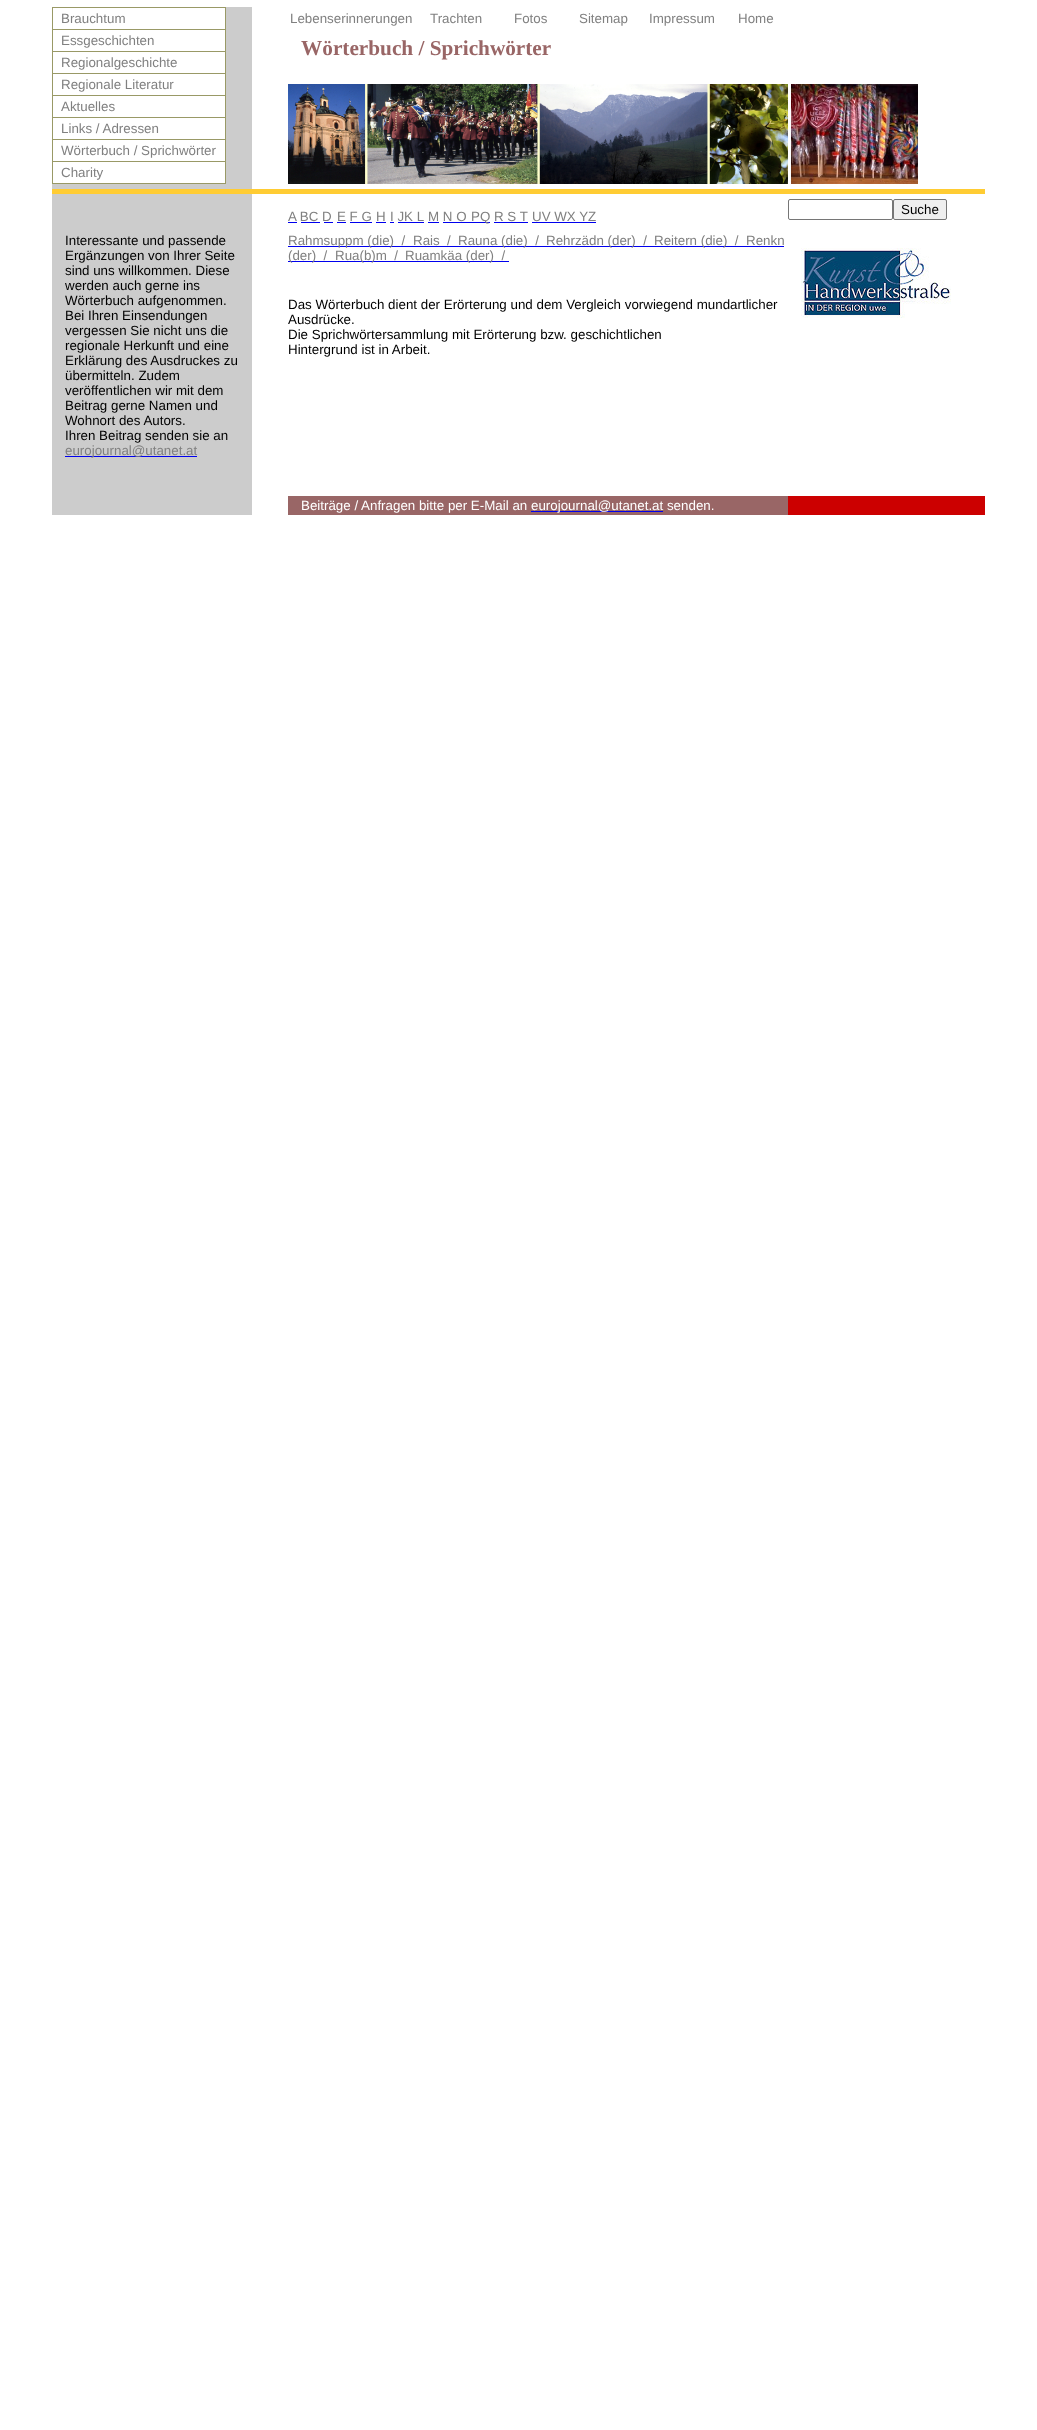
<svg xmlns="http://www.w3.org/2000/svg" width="1037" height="2430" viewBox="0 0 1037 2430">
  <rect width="100%" height="100%" fill="#ffffff"/>
  <rect x="52" y="7" width="200" height="182" fill="#cccccc"/>
  <rect x="52" y="7" width="174" height="177" fill="#999966"/>
  <rect x="53" y="8" width="172" height="21" fill="#ffffff"/>
  <text x="61" y="23" font-family="Liberation Sans" font-size="13.35" fill="#808080">Brauchtum</text>
  <rect x="53" y="30" width="172" height="21" fill="#ffffff"/>
  <text x="61" y="45" font-family="Liberation Sans" font-size="13.35" fill="#808080">Essgeschichten</text>
  <rect x="53" y="52" width="172" height="21" fill="#ffffff"/>
  <text x="61" y="67" font-family="Liberation Sans" font-size="13.35" fill="#808080">Regionalgeschichte</text>
  <rect x="53" y="74" width="172" height="21" fill="#ffffff"/>
  <text x="61" y="89" font-family="Liberation Sans" font-size="13.35" fill="#808080">Regionale Literatur</text>
  <rect x="53" y="96" width="172" height="21" fill="#ffffff"/>
  <text x="61" y="111" font-family="Liberation Sans" font-size="13.35" fill="#808080">Aktuelles</text>
  <rect x="53" y="118" width="172" height="21" fill="#ffffff"/>
  <text x="61" y="133" font-family="Liberation Sans" font-size="13.35" fill="#808080">Links / Adressen</text>
  <rect x="53" y="140" width="172" height="21" fill="#ffffff"/>
  <text x="61" y="155" font-family="Liberation Sans" font-size="13.35" fill="#808080">Wörterbuch / Sprichwörter</text>
  <rect x="53" y="162" width="172" height="21" fill="#ffffff"/>
  <text x="61" y="177" font-family="Liberation Sans" font-size="13.35" fill="#808080">Charity</text>
  <text x="290" y="23" font-family="Liberation Sans" font-size="13.35" fill="#808080">Lebenserinnerungen</text>
  <text x="430" y="23" font-family="Liberation Sans" font-size="13.35" fill="#808080">Trachten</text>
  <text x="514" y="23" font-family="Liberation Sans" font-size="13.35" fill="#808080">Fotos</text>
  <text x="579" y="23" font-family="Liberation Sans" font-size="13.35" fill="#808080">Sitemap</text>
  <text x="649" y="23" font-family="Liberation Sans" font-size="13.35" fill="#808080">Impressum</text>
  <text x="738" y="23" font-family="Liberation Sans" font-size="13.35" fill="#808080">Home</text>
  <text x="301" y="55" font-family="Liberation Serif" font-size="21.25" font-weight="bold" fill="#996666">Wörterbuch / Sprichwörter</text>
  <image x="288" y="84" width="500" height="100" href="img1.png"/>
  <image x="791" y="84" width="127" height="100" href="img2.png"/>
  <rect x="52" y="189" width="933" height="5" fill="#ffcc33"/>
  <rect x="52" y="194" width="200" height="321" fill="#cccccc"/>
  <rect x="788.5" y="199.5" width="104" height="20" rx="1.5" fill="none" stroke="#767676"/>
  <rect x="893.5" y="199.5" width="53" height="20" rx="1.5" fill="#efefef" stroke="#767676"/>
  <text x="901" y="214" font-family="Liberation Sans" font-size="13.35" fill="#000000">Suche</text>
  <text x="288" y="221" font-family="Liberation Sans" font-size="13.35" fill="#808080">A BC D</text>
  <rect x="288" y="222" width="9" height="1" fill="#0000ee"/>
  <text x="337" y="221" font-family="Liberation Sans" font-size="13.35" fill="#808080">E F G</text>
  <rect x="337" y="222" width="9" height="1" fill="#0000ee"/>
  <text x="376" y="221" font-family="Liberation Sans" font-size="13.35" fill="#808080">H</text>
  <rect x="376" y="222" width="10" height="1" fill="#0000ee"/>
  <text x="390" y="221" font-family="Liberation Sans" font-size="13.35" fill="#808080">I JK L</text>
  <rect x="390" y="222" width="4" height="1" fill="#0000ee"/>
  <text x="428" y="221" font-family="Liberation Sans" font-size="13.35" fill="#808080">M N O</text>
  <rect x="428" y="222" width="11" height="1" fill="#0000ee"/>
  <rect x="443" y="222" width="47" height="1" fill="#0000ee"/>
  <text x="471" y="221" font-family="Liberation Sans" font-size="13.35" fill="#808080">PQ R S T</text>
  <text x="532" y="221" font-family="Liberation Sans" font-size="13.35" fill="#808080">UV WX YZ</text>
  <rect x="532" y="222" width="64" height="1" fill="#0000ee"/>
  <rect x="301" y="222" width="19" height="1" fill="#0000ee"/>
  <rect x="324" y="222" width="9" height="1" fill="#0000ee"/>
  <rect x="350" y="222" width="22" height="1" fill="#0000ee"/>
  <rect x="398" y="222" width="26" height="1" fill="#0000ee"/>
  <rect x="494" y="222" width="34" height="1" fill="#0000ee"/>
  <text x="65" y="245" font-family="Liberation Sans" font-size="13.35" fill="#000000">Interessante und passende</text>
  <text x="65" y="260" font-family="Liberation Sans" font-size="13.35" fill="#000000">Ergänzungen von Ihrer Seite</text>
  <text x="65" y="275" font-family="Liberation Sans" font-size="13.35" fill="#000000">sind uns willkommen. Diese</text>
  <text x="65" y="290" font-family="Liberation Sans" font-size="13.35" fill="#000000">werden auch gerne ins</text>
  <text x="65" y="305" font-family="Liberation Sans" font-size="13.35" fill="#000000">Wörterbuch aufgenommen.</text>
  <text x="65" y="320" font-family="Liberation Sans" font-size="13.35" fill="#000000">Bei Ihren Einsendungen</text>
  <text x="65" y="335" font-family="Liberation Sans" font-size="13.35" fill="#000000">vergessen Sie nicht uns die</text>
  <text x="65" y="350" font-family="Liberation Sans" font-size="13.35" fill="#000000">regionale Herkunft und eine</text>
  <text x="65" y="365" font-family="Liberation Sans" font-size="13.35" fill="#000000">Erklärung des Ausdruckes zu</text>
  <text x="65" y="380" font-family="Liberation Sans" font-size="13.35" fill="#000000">übermitteln. Zudem</text>
  <text x="65" y="395" font-family="Liberation Sans" font-size="13.35" fill="#000000">veröffentlichen wir mit dem</text>
  <text x="65" y="410" font-family="Liberation Sans" font-size="13.35" fill="#000000">Beitrag gerne Namen und</text>
  <text x="65" y="425" font-family="Liberation Sans" font-size="13.35" fill="#000000">Wohnort des Autors.</text>
  <text x="65" y="440" font-family="Liberation Sans" font-size="13.35" fill="#000000">Ihren Beitrag senden sie an</text>
  <rect x="65" y="456" width="132" height="1" fill="#0000ee"/>
  <text x="65" y="455" font-family="Liberation Sans" font-size="13.35" fill="#808080">eurojournal@utanet.at</text>
  <rect x="288" y="246" width="496" height="1" fill="#0000ee"/>
  <text x="288" y="245" font-family="Liberation Sans" font-size="13.35" fill="#808080" xml:space="preserve">Rahmsuppm (die)  /</text>
  <text x="413" y="245" font-family="Liberation Sans" font-size="13.35" fill="#808080" xml:space="preserve">Rais  /</text>
  <text x="458" y="245" font-family="Liberation Sans" font-size="13.35" fill="#808080" xml:space="preserve">Rauna (die)  /</text>
  <text x="546" y="245" font-family="Liberation Sans" font-size="13.35" fill="#808080" xml:space="preserve">Rehrzädn (der)  /</text>
  <text x="654" y="245" font-family="Liberation Sans" font-size="13.35" fill="#808080" xml:space="preserve">Reitern (die)  /</text>
  <text x="746" y="245" font-family="Liberation Sans" font-size="13.35" fill="#808080">Renkn</text>
  <rect x="288" y="261" width="221" height="1" fill="#0000ee"/>
  <text x="288" y="260" font-family="Liberation Sans" font-size="13.35" fill="#808080" xml:space="preserve">(der)  /</text>
  <text x="335" y="260" font-family="Liberation Sans" font-size="13.35" fill="#808080" xml:space="preserve">Rua(b)m  /</text>
  <text x="405" y="260" font-family="Liberation Sans" font-size="13.35" fill="#808080" xml:space="preserve">Ruamkäa (der)  /</text>
  <text x="288" y="309" font-family="Liberation Sans" font-size="13.35" fill="#000000">Das Wörterbuch dient der Erörterung und dem Vergleich vorwiegend mundartlicher</text>
  <text x="288" y="324" font-family="Liberation Sans" font-size="13.35" fill="#000000">Ausdrücke.</text>
  <text x="288" y="339" font-family="Liberation Sans" font-size="13.35" fill="#000000">Die Sprichwörtersammlung mit Erörterung bzw. geschichtlichen</text>
  <text x="288" y="354" font-family="Liberation Sans" font-size="13.35" fill="#000000">Hintergrund ist in Arbeit.</text>
  <image x="801" y="248" width="150" height="70" href="img3.png"/>
  <rect x="288" y="496" width="500" height="19" fill="#996666"/>
  <text x="301" y="510" font-family="Liberation Sans" font-size="13.35" fill="#ffffff">Beiträge / Anfragen bitte per E-Mail an</text>
  <rect x="531" y="511" width="132" height="1" fill="#0000ee"/>
  <text x="531" y="510" font-family="Liberation Sans" font-size="13.35" fill="#ffffff">eurojournal@utanet.at senden.</text>
  <rect x="788" y="496" width="197" height="19" fill="#cc0000"/>
</svg>
